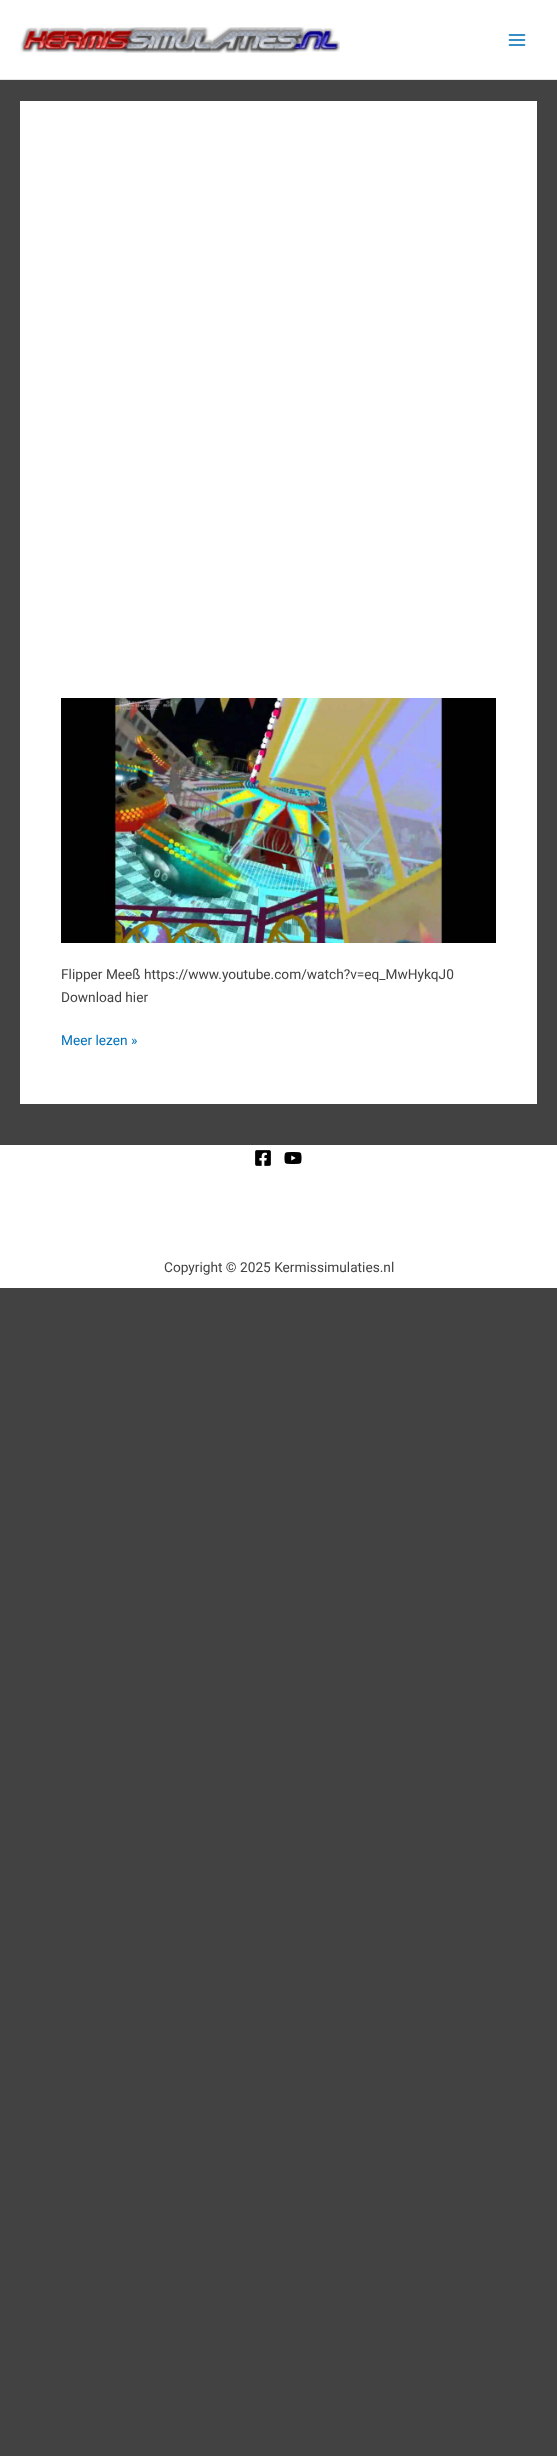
<svg xmlns="http://www.w3.org/2000/svg" width="557" height="2456" viewBox="0 0 557 2456">
  <rect width="100%" height="100%" fill="#424242"/>
  <rect x="0" y="0" width="557" height="79" fill="#ffffff"/>
  <rect x="0" y="79" width="557" height="1" fill="#e5e5e5"/>
  <image x="20" y="27" width="320" height="26" href="img1.png"/>
  <image x="508" y="34" width="18" height="12" href="img2.png"/>
  <rect x="20" y="101" width="517" height="1003" fill="#ffffff"/>
  <image x="61" y="698" width="435" height="245" href="img3.png"/>
  <text x="61" y="979" font-family="Roboto" font-size="13.7" fill="#424242">Flipper Meeß https://www.youtube.com/watch?v=eq_MwHykqJ0</text>
  <text x="61" y="1002" font-family="Roboto" font-size="13.7" fill="#424242">Download hier</text>
  <text x="61" y="1045" font-family="Roboto" font-size="13.7" fill="#0170b9">Meer lezen »</text>
  <rect x="0" y="1145" width="557" height="143" fill="#ffffff"/>
  <image x="255" y="1150" width="16" height="16" href="img4.png"/>
  <image x="284" y="1152" width="18" height="12" href="img5.png"/>
  <text x="164" y="1272" font-family="Roboto" font-size="13.7" fill="#424242">Copyright © 2025 Kermissimulaties.nl</text>
</svg>
